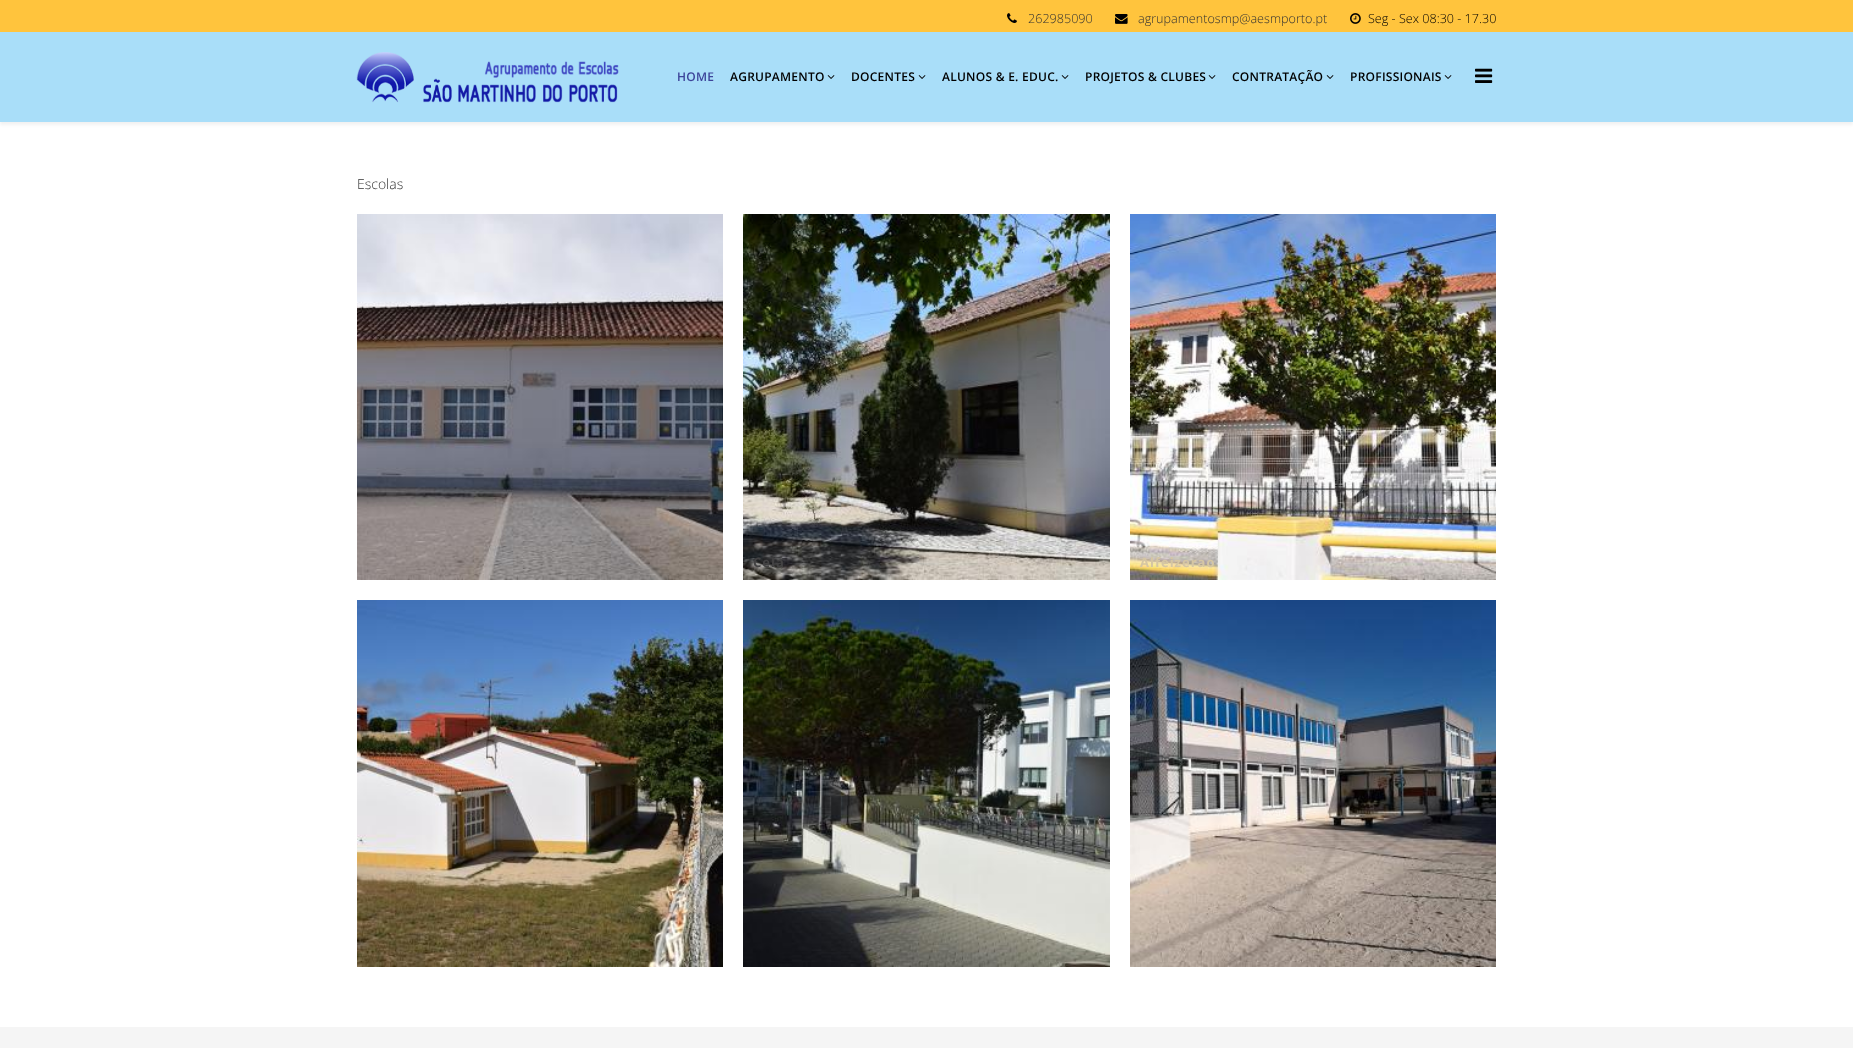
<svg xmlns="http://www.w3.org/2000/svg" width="1853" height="1048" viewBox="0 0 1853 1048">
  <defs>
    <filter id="blur1" x="-50%" y="-200%" width="200%" height="500%"><feGaussianBlur stdDeviation="1.5"/></filter>
  </defs>
  <rect width="100%" height="100%" fill="#ffffff"/>
  <rect x="0" y="0" width="1853" height="32" fill="#ffc43d"/>
  <image x="1007" y="13" width="10" height="10" href="img1.png"/>
  <text x="1028" y="23" font-family="Open Sans" font-size="12.6" font-weight="300" fill="#333333">262985090</text>
  <image x="1115" y="14" width="13" height="10" href="img2.png"/>
  <text x="1138" y="23" font-family="Open Sans" font-size="12.6" font-weight="300" fill="#333333">agrupamentosmp@aesmporto.pt</text>
  <image x="1350" y="13" width="11" height="11" href="img3.png"/>
  <text x="1368" y="23" font-family="Open Sans" font-size="12.6" font-weight="300" fill="#000000">Seg - Sex 08:30 - 17.30</text>
  <rect x="0" y="35" width="1853" height="90" fill="#000000" fill-opacity="0.05" filter="url(#blur1)"/>
  <rect x="0" y="32" width="1853" height="90" fill="#a9def9"/>
  <image x="356" y="52" width="263" height="51" href="img4.png"/>
  <text x="677" y="81" font-family="Open Sans" font-size="12" font-weight="600" letter-spacing="0.25" fill="#3d449a">HOME</text>
  <text x="730" y="81" font-family="Open Sans" font-size="12" font-weight="600" letter-spacing="0.25" fill="#000000">AGRUPAMENTO</text>
  <image x="827" y="75" width="8" height="4" href="img5.png"/>
  <text x="851" y="81" font-family="Open Sans" font-size="12" font-weight="600" letter-spacing="0.25" fill="#000000">DOCENTES</text>
  <image x="918" y="75" width="8" height="4" href="img5.png"/>
  <text x="942" y="81" font-family="Open Sans" font-size="12" font-weight="600" letter-spacing="0.25" fill="#000000">ALUNOS &amp; E. EDUC.</text>
  <image x="1061" y="75" width="8" height="4" href="img5.png"/>
  <text x="1085" y="81" font-family="Open Sans" font-size="12" font-weight="600" letter-spacing="0.25" fill="#000000">PROJETOS &amp; CLUBES</text>
  <image x="1208" y="75" width="8" height="4" href="img5.png"/>
  <text x="1232" y="81" font-family="Open Sans" font-size="12" font-weight="600" letter-spacing="0.25" fill="#000000">CONTRATAÇÃO</text>
  <image x="1326" y="75" width="8" height="4" href="img5.png"/>
  <text x="1350" y="81" font-family="Open Sans" font-size="12" font-weight="600" letter-spacing="0.25" fill="#000000">PROFISSIONAIS</text>
  <image x="1444" y="75" width="8" height="4" href="img5.png"/>
  <image x="1475" y="68" width="18" height="15" href="img6.png"/>
  <text x="357" y="189" font-family="Open Sans" font-size="14" font-weight="300" fill="#333333">Escolas</text>
  <image x="357" y="214" width="366" height="366" href="img7.png"/>
  <image x="743" y="214" width="367" height="366" href="img8.png"/>
  <text x="753" y="567" font-family="Open Sans" font-size="13" font-weight="bold" letter-spacing="1" fill="#434243">Cela</text>
  <image x="1130" y="214" width="366" height="366" href="img9.png"/>
  <text x="1140" y="567" font-family="Open Sans" font-size="13" font-weight="bold" letter-spacing="1" fill="#d5c6a3">Alfeizerao</text>
  <image x="357" y="600" width="366" height="367" href="img10.png"/>
  <image x="743" y="600" width="367" height="367" href="img11.png"/>
  <image x="1130" y="600" width="366" height="367" href="img12.png"/>
  <rect x="0" y="1027" width="1853" height="21" fill="#f5f5f5"/>
</svg>
